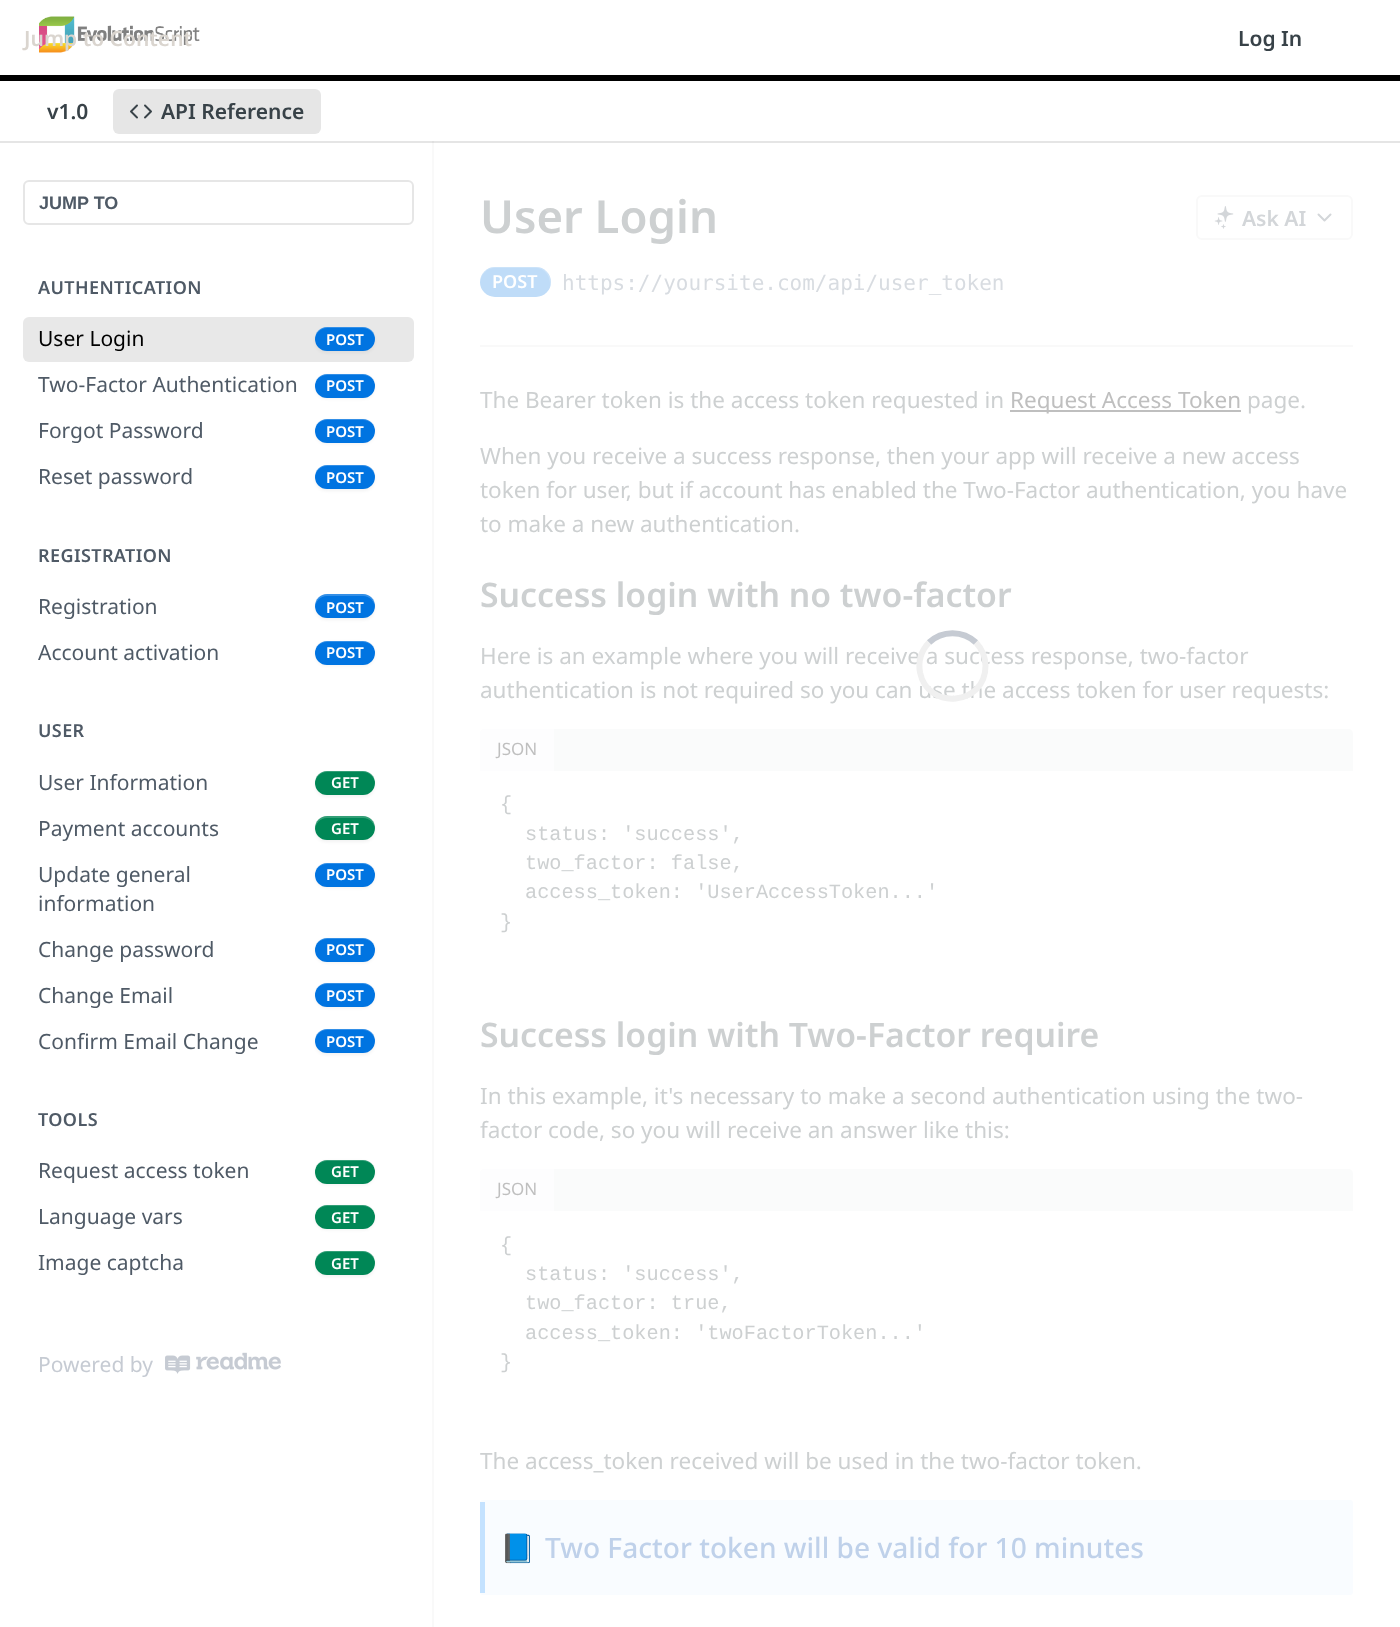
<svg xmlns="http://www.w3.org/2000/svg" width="1400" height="1627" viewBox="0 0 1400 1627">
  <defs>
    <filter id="blur1" x="-50%" y="-200%" width="200%" height="500%"><feGaussianBlur stdDeviation="1.5"/></filter>
  </defs>
  <rect width="100%" height="100%" fill="#ffffff"/>
  <path d="M2 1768V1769H434V141H432V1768Z" fill="#f9f9f9"/>
  <rect x="0" y="141" width="1400" height="2" fill="#000000" fill-opacity="0.1"/>
  <rect x="0" y="75" width="1400" height="6" fill="#000000"/>
  <image x="39" y="16" width="161" height="37" href="img1.png"/>
  <text x="24" y="46" font-family="Noto Sans" font-size="21" font-weight="600" fill="#dad5cf">Jump to Content</text>
  <text x="1238" y="46" font-family="Noto Sans" font-size="21" font-weight="600" fill="#384248">Log In</text>
  <text x="47" y="119" font-family="Noto Sans" font-size="21" font-weight="600" fill="#384248">v1.0</text>
  <rect x="113" y="89" width="208" height="45" rx="6" fill="#e6e6e6"/>
  <image x="130" y="104" width="22" height="15" href="img2.png"/>
  <text x="161" y="119" font-family="Noto Sans" font-size="21" font-weight="600" fill="#384248">API Reference</text>
  <rect x="24" y="181" width="389" height="43" rx="5" fill="none" stroke="#e6e6e6" stroke-width="2"/>
  <text x="39" y="209" font-family="Liberation Sans" font-size="18" font-weight="bold" fill="#4f5a66">JUMP TO</text>
  <text x="38" y="294" font-family="Noto Sans" font-size="18" font-weight="600" letter-spacing="0.4" fill="#4f5a66">AUTHENTICATION</text>
  <rect x="23" y="317" width="391" height="45" rx="6" fill="#e8e8e8"/>
  <text x="38" y="346" font-family="Noto Sans" font-size="21" fill="#000000">User Login</text>
  <rect x="315" y="329" width="60" height="24" rx="12" fill="#000000" fill-opacity="0.05" filter="url(#blur1)"/>
  <rect x="315" y="327" width="60" height="24" rx="12" fill="#0074e1"/>
  <path d="M327 328H363C370 328 375 334 375 340C376 323 355 327 345 327C335 327 314 323 315 340C315 334 320 328 327 328Z" fill="#ffffff" fill-opacity="0.2"/>
  <text x="326" y="345" font-family="Noto Sans" font-size="15" font-weight="600" fill="#ffffff">POST</text>
  <text x="38" y="392" font-family="Noto Sans" font-size="21" fill="#4f5a66">Two-Factor Authentication</text>
  <rect x="315" y="375" width="60" height="24" rx="12" fill="#000000" fill-opacity="0.05" filter="url(#blur1)"/>
  <rect x="315" y="374" width="60" height="24" rx="12" fill="#0074e1"/>
  <path d="M327 375H363C370 375 375 380 375 386C376 370 355 374 345 374C335 374 314 370 315 386C315 380 320 375 327 375Z" fill="#ffffff" fill-opacity="0.2"/>
  <text x="326" y="391" font-family="Noto Sans" font-size="15" font-weight="600" fill="#ffffff">POST</text>
  <text x="38" y="438" font-family="Noto Sans" font-size="21" fill="#4f5a66">Forgot Password</text>
  <rect x="315" y="420" width="60" height="24" rx="12" fill="#000000" fill-opacity="0.05" filter="url(#blur1)"/>
  <rect x="315" y="419" width="60" height="24" rx="12" fill="#0074e1"/>
  <path d="M327 420H363C370 420 375 425 375 431C376 415 355 419 345 419C335 419 314 415 315 431C315 425 320 420 327 420Z" fill="#ffffff" fill-opacity="0.2"/>
  <text x="326" y="437" font-family="Noto Sans" font-size="15" font-weight="600" fill="#ffffff">POST</text>
  <text x="38" y="484" font-family="Noto Sans" font-size="21" fill="#4f5a66">Reset password</text>
  <rect x="315" y="467" width="60" height="24" rx="12" fill="#000000" fill-opacity="0.05" filter="url(#blur1)"/>
  <rect x="315" y="465" width="60" height="24" rx="12" fill="#0074e1"/>
  <path d="M327 466H363C370 466 375 472 375 478C376 461 355 465 345 465C335 465 314 461 315 478C315 472 320 466 327 466Z" fill="#ffffff" fill-opacity="0.2"/>
  <text x="326" y="483" font-family="Noto Sans" font-size="15" font-weight="600" fill="#ffffff">POST</text>
  <text x="38" y="562" font-family="Noto Sans" font-size="18" font-weight="600" letter-spacing="0.4" fill="#4f5a66">REGISTRATION</text>
  <text x="38" y="614" font-family="Noto Sans" font-size="21" fill="#4f5a66">Registration</text>
  <rect x="315" y="596" width="60" height="24" rx="12" fill="#000000" fill-opacity="0.05" filter="url(#blur1)"/>
  <rect x="315" y="594" width="60" height="24" rx="12" fill="#0074e1"/>
  <path d="M327 596H363C370 596 374 601 375 607C376 590 355 594 345 594C335 594 314 590 315 607C316 601 320 596 327 596Z" fill="#ffffff" fill-opacity="0.2"/>
  <text x="326" y="613" font-family="Noto Sans" font-size="15" font-weight="600" fill="#ffffff">POST</text>
  <text x="38" y="660" font-family="Noto Sans" font-size="21" fill="#4f5a66">Account activation</text>
  <rect x="315" y="642" width="60" height="24" rx="12" fill="#000000" fill-opacity="0.05" filter="url(#blur1)"/>
  <rect x="315" y="641" width="60" height="24" rx="12" fill="#0074e1"/>
  <path d="M327 642H363C370 642 375 647 375 653C376 637 355 641 345 641C335 641 314 637 315 653C315 647 320 642 327 642Z" fill="#ffffff" fill-opacity="0.2"/>
  <text x="326" y="658" font-family="Noto Sans" font-size="15" font-weight="600" fill="#ffffff">POST</text>
  <text x="38" y="737" font-family="Noto Sans" font-size="18" font-weight="600" letter-spacing="0.4" fill="#4f5a66">USER</text>
  <text x="38" y="790" font-family="Noto Sans" font-size="21" fill="#4f5a66">User Information</text>
  <rect x="315" y="773" width="60" height="24" rx="12" fill="#000000" fill-opacity="0.05" filter="url(#blur1)"/>
  <rect x="315" y="771" width="60" height="24" rx="12" fill="#008756"/>
  <path d="M327 772H363C370 772 375 778 375 784C376 767 355 771 345 771C335 771 314 767 315 784C315 778 320 772 327 772Z" fill="#ffffff" fill-opacity="0.2"/>
  <text x="331" y="788" font-family="Noto Sans" font-size="15" font-weight="600" fill="#ffffff">GET</text>
  <text x="38" y="836" font-family="Noto Sans" font-size="21" fill="#4f5a66">Payment accounts</text>
  <rect x="315" y="818" width="60" height="24" rx="12" fill="#000000" fill-opacity="0.05" filter="url(#blur1)"/>
  <rect x="315" y="816" width="60" height="24" rx="12" fill="#008756"/>
  <path d="M327 818H363C370 818 374 823 375 829C376 812 355 816 345 816C335 816 314 812 315 829C316 823 320 818 327 818Z" fill="#ffffff" fill-opacity="0.2"/>
  <text x="331" y="834" font-family="Noto Sans" font-size="15" font-weight="600" fill="#ffffff">GET</text>
  <text x="38" y="882" font-family="Noto Sans" font-size="21" fill="#4f5a66">Update general</text>
  <text x="38" y="911" font-family="Noto Sans" font-size="21" fill="#4f5a66">information</text>
  <rect x="315" y="864" width="60" height="24" rx="12" fill="#000000" fill-opacity="0.05" filter="url(#blur1)"/>
  <rect x="315" y="863" width="60" height="24" rx="12" fill="#0074e1"/>
  <path d="M327 864H363C370 864 375 869 375 875C376 859 355 863 345 863C335 863 314 859 315 875C315 869 320 864 327 864Z" fill="#ffffff" fill-opacity="0.2"/>
  <text x="326" y="880" font-family="Noto Sans" font-size="15" font-weight="600" fill="#ffffff">POST</text>
  <text x="38" y="957" font-family="Noto Sans" font-size="21" fill="#4f5a66">Change password</text>
  <rect x="315" y="939" width="60" height="24" rx="12" fill="#000000" fill-opacity="0.05" filter="url(#blur1)"/>
  <rect x="315" y="938" width="60" height="24" rx="12" fill="#0074e1"/>
  <path d="M327 939H363C370 939 375 944 375 950C376 934 355 938 345 938C335 938 314 934 315 950C315 944 320 939 327 939Z" fill="#ffffff" fill-opacity="0.2"/>
  <text x="326" y="955" font-family="Noto Sans" font-size="15" font-weight="600" fill="#ffffff">POST</text>
  <text x="38" y="1003" font-family="Noto Sans" font-size="21" fill="#4f5a66">Change Email</text>
  <rect x="315" y="984" width="60" height="24" rx="12" fill="#000000" fill-opacity="0.05" filter="url(#blur1)"/>
  <rect x="315" y="983" width="60" height="24" rx="12" fill="#0074e1"/>
  <path d="M327 984H363C370 984 375 989 375 995C376 979 355 983 345 983C335 983 314 979 315 995C315 989 320 984 327 984Z" fill="#ffffff" fill-opacity="0.2"/>
  <text x="326" y="1001" font-family="Noto Sans" font-size="15" font-weight="600" fill="#ffffff">POST</text>
  <text x="38" y="1049" font-family="Noto Sans" font-size="21" fill="#4f5a66">Confirm Email Change</text>
  <rect x="315" y="1031" width="60" height="24" rx="12" fill="#000000" fill-opacity="0.05" filter="url(#blur1)"/>
  <rect x="315" y="1029" width="60" height="24" rx="12" fill="#0074e1"/>
  <path d="M327 1030H363C370 1030 375 1036 375 1042C376 1025 355 1029 345 1029C335 1029 314 1025 315 1042C315 1036 320 1030 327 1030Z" fill="#ffffff" fill-opacity="0.2"/>
  <text x="326" y="1047" font-family="Noto Sans" font-size="15" font-weight="600" fill="#ffffff">POST</text>
  <text x="38" y="1126" font-family="Noto Sans" font-size="18" font-weight="600" letter-spacing="0.4" fill="#4f5a66">TOOLS</text>
  <text x="38" y="1178" font-family="Noto Sans" font-size="21" fill="#4f5a66">Request access token</text>
  <rect x="315" y="1161" width="60" height="24" rx="12" fill="#000000" fill-opacity="0.05" filter="url(#blur1)"/>
  <rect x="315" y="1160" width="60" height="24" rx="12" fill="#008756"/>
  <path d="M327 1161H363C370 1161 375 1166 375 1172C376 1156 355 1160 345 1160C335 1160 314 1156 315 1172C315 1166 320 1161 327 1161Z" fill="#ffffff" fill-opacity="0.2"/>
  <text x="331" y="1177" font-family="Noto Sans" font-size="15" font-weight="600" fill="#ffffff">GET</text>
  <text x="38" y="1224" font-family="Noto Sans" font-size="21" fill="#4f5a66">Language vars</text>
  <rect x="315" y="1206" width="60" height="24" rx="12" fill="#000000" fill-opacity="0.05" filter="url(#blur1)"/>
  <rect x="315" y="1205" width="60" height="24" rx="12" fill="#008756"/>
  <path d="M327 1206H363C370 1206 375 1211 375 1217C376 1201 355 1205 345 1205C335 1205 314 1201 315 1217C315 1211 320 1206 327 1206Z" fill="#ffffff" fill-opacity="0.2"/>
  <text x="331" y="1223" font-family="Noto Sans" font-size="15" font-weight="600" fill="#ffffff">GET</text>
  <text x="38" y="1270" font-family="Noto Sans" font-size="21" fill="#4f5a66">Image captcha</text>
  <rect x="315" y="1253" width="60" height="24" rx="12" fill="#000000" fill-opacity="0.05" filter="url(#blur1)"/>
  <rect x="315" y="1251" width="60" height="24" rx="12" fill="#008756"/>
  <path d="M327 1252H363C370 1252 375 1258 375 1264C376 1247 355 1251 345 1251C335 1251 314 1247 315 1264C315 1258 320 1252 327 1252Z" fill="#ffffff" fill-opacity="0.2"/>
  <text x="331" y="1269" font-family="Noto Sans" font-size="15" font-weight="600" fill="#ffffff">GET</text>
  <text x="38" y="1372" font-family="Noto Sans" font-size="21" fill="#c6cbd3">Powered by</text>
  <image x="165" y="1352" width="116" height="22" href="img3.png"/>
  <rect x="480" y="345" width="873" height="2" fill="#f9f9f9"/>
  <text x="480" y="233" font-family="Noto Sans" font-size="45.5" font-weight="600" fill="#cdd0d1">User Login</text>
  <rect x="1197" y="196" width="155" height="43" rx="5" fill="none" stroke="#f9f9f9" stroke-width="2"/>
  <image x="1214" y="206" width="20" height="23" href="img4.png"/>
  <text x="1242" y="226" font-family="Noto Sans" font-size="21" font-weight="600" fill="#d3d6d9">Ask AI</text>
  <path d="M1318.5 214.5L1324.5 220.5L1330.5 214.5" fill="none" stroke="#d3d6d9" stroke-width="2" stroke-linecap="round" stroke-linejoin="round"/>
  <rect x="480" y="267" width="71" height="30" rx="15" fill="#bfdcf8"/>
  <path d="M495 268H536C544 268 550 275 550 284C550 286 550 288 549 290C550 287 551 285 551 282C551 274 544 267 536 267H495C487 267 480 274 480 282V283C481 274 487 268 495 268Z" fill="#ffffff" fill-opacity="0.2"/>
  <text x="492" y="288" font-family="Noto Sans" font-size="18" font-weight="600" fill="#ffffff">POST</text>
  <text x="562" y="290" font-family="DejaVu Sans Mono" font-size="21" fill="#d8dce1">https://yoursite.com/api/user_token</text>
  <text x="480" y="408" font-family="Noto Sans" font-size="22.5" fill="#cdd0d1">The Bearer token is the access token requested in</text>
  <rect x="1010" y="410" width="231" height="2" fill="#bfbfbf"/>
  <text x="1010" y="408" font-family="Noto Sans" font-size="22.5" fill="#bfbfbf">Request Access Token</text>
  <text x="1247" y="408" font-family="Noto Sans" font-size="22.5" fill="#cdd0d1">page.</text>
  <text x="480" y="464" font-family="Noto Sans" font-size="22.5" fill="#cdd0d1">When you receive a success response, then your app will receive a new access</text>
  <text x="480" y="498" font-family="Noto Sans" font-size="22.5" fill="#cdd0d1">token for user, but if account has enabled the Two-Factor authentication, you have</text>
  <text x="480" y="532" font-family="Noto Sans" font-size="22.5" fill="#cdd0d1">to make a new authentication.</text>
  <text x="480" y="607" font-family="Noto Sans" font-size="33.75" font-weight="600" fill="#cdd0d1">Success login with no two-factor</text>
  <text x="480" y="664" font-family="Noto Sans" font-size="22.5" fill="#cdd0d1">Here is an example where you will receive a success response, two-factor</text>
  <text x="480" y="698" font-family="Noto Sans" font-size="22.5" fill="#cdd0d1">authentication is not required so you can use the access token for user requests:</text>
  <path d="M485 729H1348C1351 729 1353 731 1353 734V771H480V734C480 731 482 729 485 729Z" fill="#fafbfb"/>
  <path d="M485 729H554V771H480V734C480 731 482 729 485 729Z" fill="#fdfdfe"/>
  <text x="497" y="755" font-family="Noto Sans" font-size="17" fill="#bfbfbf">JSON</text>
  <text x="500" y="810" font-family="Liberation Mono" font-size="20.25" fill="#cdd0d1">{</text>
  <text x="525" y="840" font-family="Liberation Mono" font-size="20.25" fill="#cdd0d1">status: 'success',</text>
  <text x="525" y="869" font-family="Liberation Mono" font-size="20.25" fill="#cdd0d1">two_factor: false,</text>
  <text x="525" y="898" font-family="Liberation Mono" font-size="20.25" fill="#cdd0d1">access_token: 'UserAccessToken...'</text>
  <text x="500" y="928" font-family="Liberation Mono" font-size="20.25" fill="#cdd0d1">}</text>
  <text x="480" y="1047" font-family="Noto Sans" font-size="33.75" font-weight="600" fill="#cdd0d1">Success login with Two-Factor require</text>
  <text x="480" y="1104" font-family="Noto Sans" font-size="22.5" fill="#cdd0d1">In this example, it's necessary to make a second authentication using the two-</text>
  <text x="480" y="1138" font-family="Noto Sans" font-size="22.5" fill="#cdd0d1">factor code, so you will receive an answer like this:</text>
  <path d="M485 1169H1348C1351 1169 1353 1171 1353 1174V1211H480V1174C480 1171 482 1169 485 1169Z" fill="#fafbfb"/>
  <path d="M485 1169H554V1211H480V1174C480 1171 482 1169 485 1169Z" fill="#fdfdfe"/>
  <text x="497" y="1195" font-family="Noto Sans" font-size="17" fill="#bfbfbf">JSON</text>
  <text x="500" y="1251" font-family="Liberation Mono" font-size="20.25" fill="#cdd0d1">{</text>
  <text x="525" y="1280" font-family="Liberation Mono" font-size="20.25" fill="#cdd0d1">status: 'success',</text>
  <text x="525" y="1309" font-family="Liberation Mono" font-size="20.25" fill="#cdd0d1">two_factor: true,</text>
  <text x="525" y="1339" font-family="Liberation Mono" font-size="20.25" fill="#cdd0d1">access_token: 'twoFactorToken...'</text>
  <text x="500" y="1368" font-family="Liberation Mono" font-size="20.25" fill="#cdd0d1">}</text>
  <text x="480" y="1469" font-family="Noto Sans" font-size="22.5" fill="#cdd0d1">The access_token received will be used in the two-factor token.</text>
  <rect x="480" y="1500" width="873" height="95" rx="3" fill="#f9fcff"/>
  <rect x="480" y="1502" width="5" height="91" fill="#c4e2ff"/>
  <text x="500" y="1558" font-family="Noto Color Emoji" font-size="28.1" fill="#bfd1ea">📘</text>
  <text x="545" y="1558" font-family="Noto Sans" font-size="28.1" font-weight="500" fill="#bfd1ea">Two Factor token will be valid for 10 minutes</text>
  <path d="M929 642.5C942 630 963 630 976 642.5" fill="none" stroke="#c6cbd3" stroke-width="6"/>
  <path d="M976 642.5C982 649 985.5 657.5 985.5 666C985.5 705.5 928 711 920 672.5C918 661.5 921.5 650.5 929 642.5" fill="none" stroke="#f0f0f0" stroke-width="6"/>
</svg>
